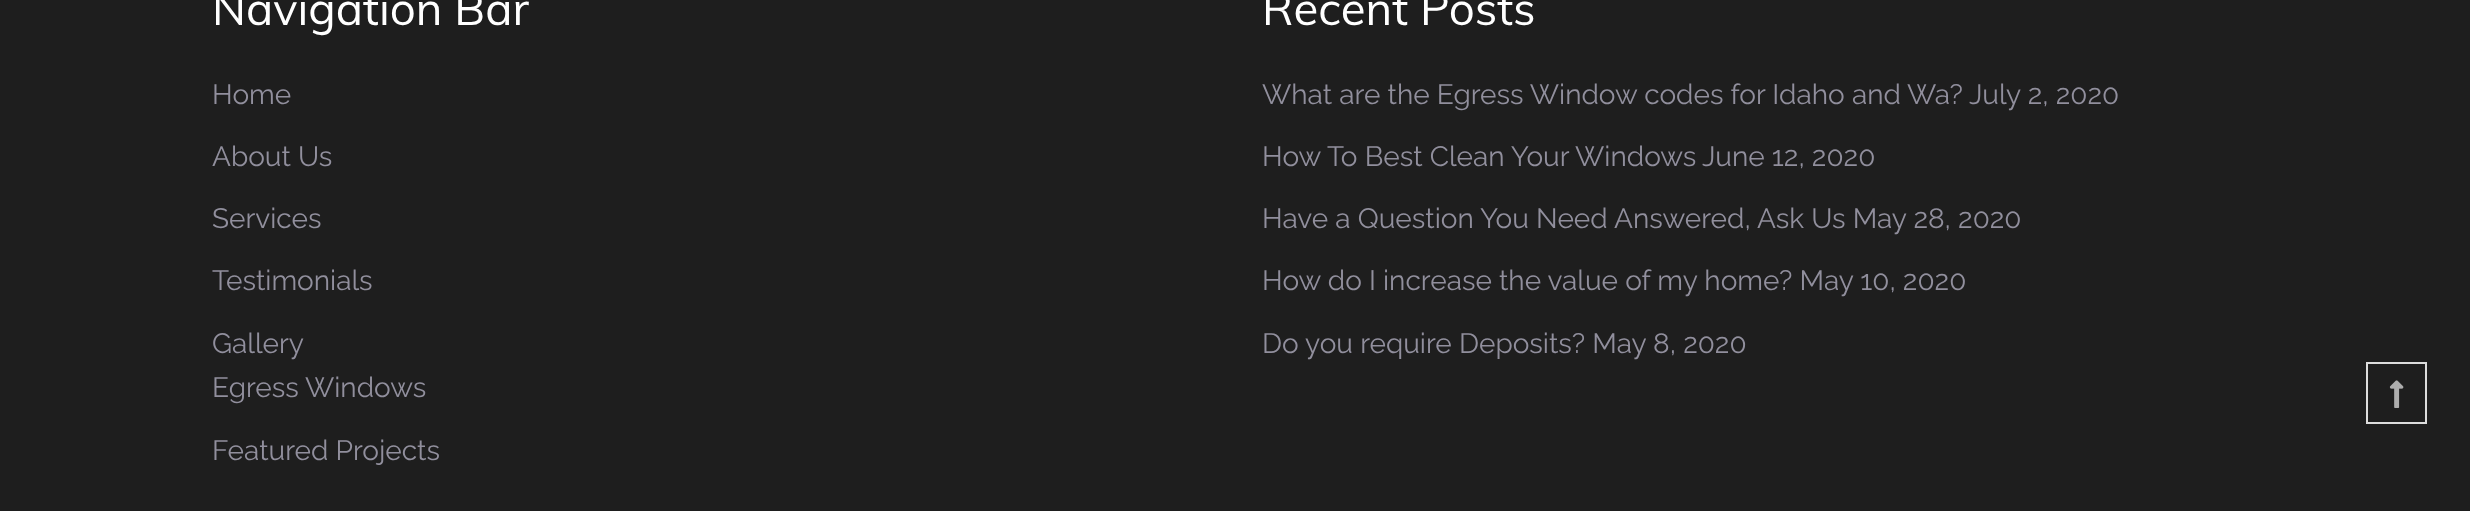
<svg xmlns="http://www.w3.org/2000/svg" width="2470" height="511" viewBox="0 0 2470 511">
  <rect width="100%" height="100%" fill="#1e1e1e"/>
  <text x="212" y="25" font-family="Muli" font-size="45.5" fill="#ffffff">Navigation Bar</text>
  <text x="212" y="104" font-family="Raleway" font-size="28" fill="#918f9d">Home</text>
  <text x="212" y="166" font-family="Raleway" font-size="28" fill="#918f9d">About Us</text>
  <text x="212" y="228" font-family="Raleway" font-size="28" fill="#918f9d">Services</text>
  <text x="212" y="290" font-family="Raleway" font-size="28" fill="#918f9d">Testimonials</text>
  <text x="212" y="353" font-family="Raleway" font-size="28" fill="#918f9d">Gallery</text>
  <text x="212" y="397" font-family="Raleway" font-size="28" fill="#918f9d">Egress Windows</text>
  <text x="212" y="460" font-family="Raleway" font-size="28" fill="#918f9d">Featured Projects</text>
  <text x="1262" y="25" font-family="Muli" font-size="45.5" fill="#ffffff">Recent Posts</text>
  <text x="1262" y="104" font-family="Raleway" font-size="28" fill="#918f9d">What are the Egress Window codes for Idaho and Wa?</text>
  <text x="1969" y="104" font-family="Raleway" font-size="28" fill="#918f9d">July 2, 2020</text>
  <text x="1262" y="166" font-family="Raleway" font-size="28" fill="#918f9d">How To Best Clean Your Windows</text>
  <text x="1702" y="166" font-family="Raleway" font-size="28" fill="#918f9d">June 12, 2020</text>
  <text x="1262" y="228" font-family="Raleway" font-size="28" fill="#918f9d">Have a Question You Need Answered, Ask Us May 28, 2020</text>
  <text x="1262" y="290" font-family="Raleway" font-size="28" fill="#918f9d">How do I increase the value of my home? May 10, 2020</text>
  <text x="1262" y="353" font-family="Raleway" font-size="28" fill="#918f9d">Do you require Deposits? May 8, 2020</text>
  <rect x="2367" y="363" width="59" height="60" fill="none" stroke="#dddddd" stroke-width="2"/>
  <image x="2389" y="380" width="15" height="28" href="img1.png"/>
</svg>
